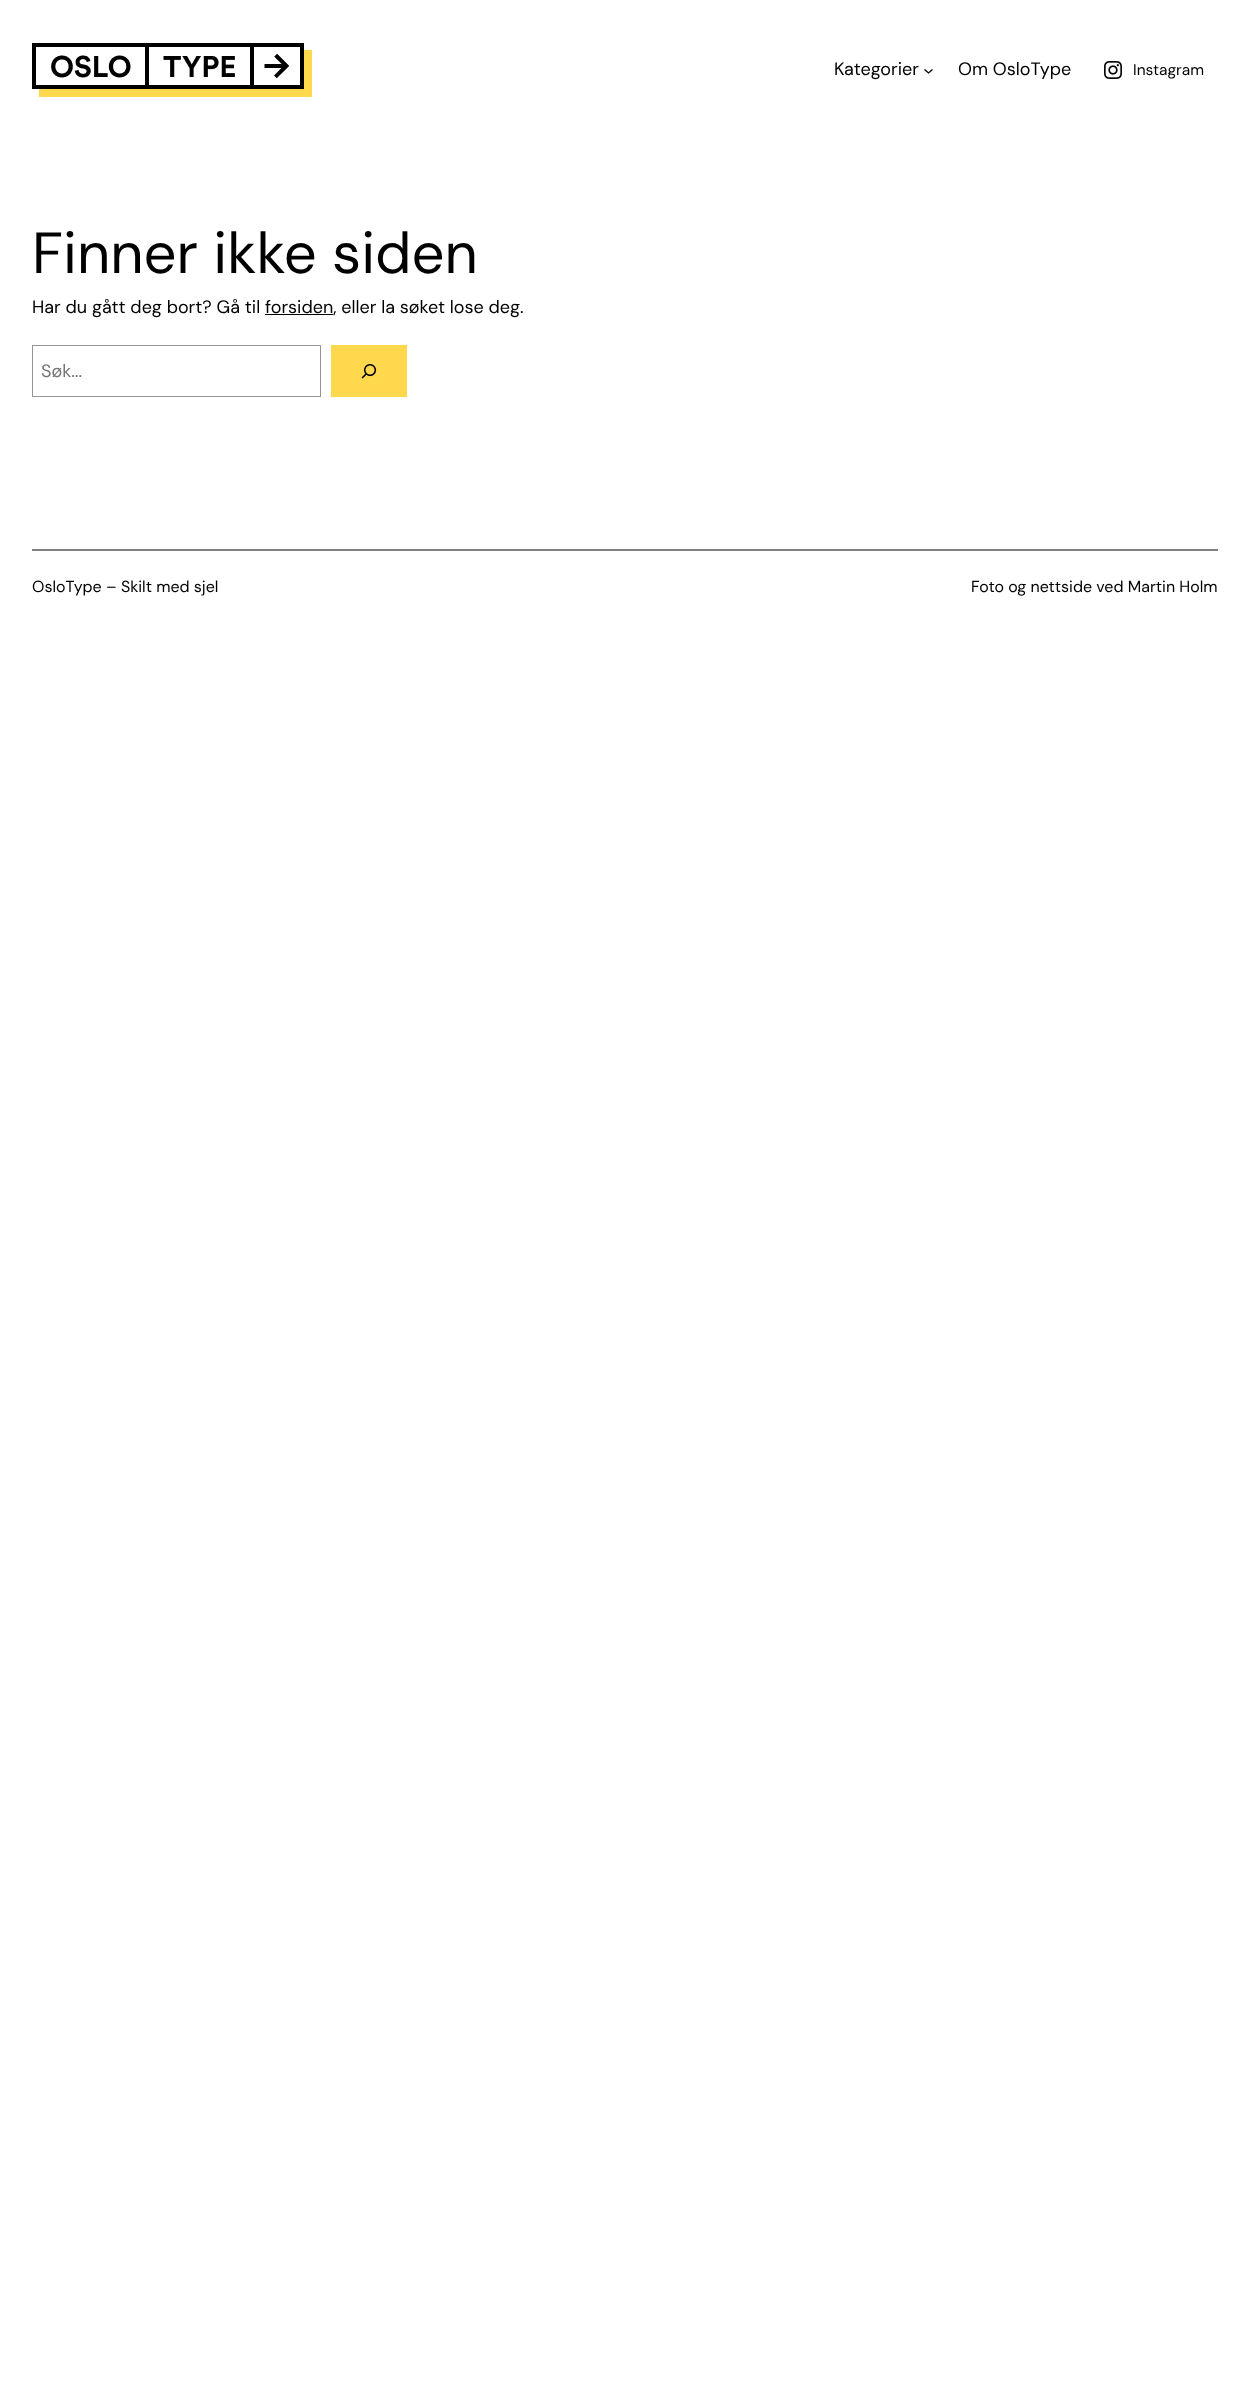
<svg xmlns="http://www.w3.org/2000/svg" width="1250" height="2396" viewBox="0 0 1250 2396">
  <rect width="100%" height="100%" fill="#ffffff"/>
  <image x="32" y="43" width="280" height="54" href="img1.png"/>
  <text x="834" y="75" font-family="DM Sans" font-size="18" fill="#000000">Kategorier</text>
  <path d="M924.5 69.5L928.5 73L932.5 69.5" fill="none" stroke="#000000" stroke-width="1.3"/>
  <text x="958" y="75" font-family="DM Sans" font-size="18" fill="#000000">Om OsloType</text>
  <image x="1104" y="61" width="18" height="18" href="img2.png"/>
  <text x="1133" y="75" font-family="DM Sans" font-size="15.5" fill="#000000">Instagram</text>
  <text x="32" y="273" font-family="DM Sans" font-size="58" fill="#000000">Finner ikke siden</text>
  <text x="32" y="313" font-family="DM Sans" font-size="18" fill="#000000">Har du gått deg bort? Gå til forsiden, eller la søket lose deg.</text>
  <rect x="265" y="314" width="68" height="1" fill="#000000"/>
  <rect x="32.5" y="345.5" width="288" height="51" fill="none" stroke="#949494"/>
  <text x="41" y="377" font-family="DM Sans" font-size="18" fill="#757575">Søk...</text>
  <rect x="331" y="345" width="76" height="52" fill="#ffd84d"/>
  <image x="361" y="364" width="16" height="15" href="img3.png"/>
  <rect x="32" y="549" width="1186" height="2" fill="#808080"/>
  <text x="32" y="592" font-family="DM Sans" font-size="16" fill="#000000">OsloType – Skilt med sjel</text>
  <text x="971" y="592" font-family="DM Sans" font-size="16" fill="#000000">Foto og nettside ved Martin Holm</text>
</svg>
